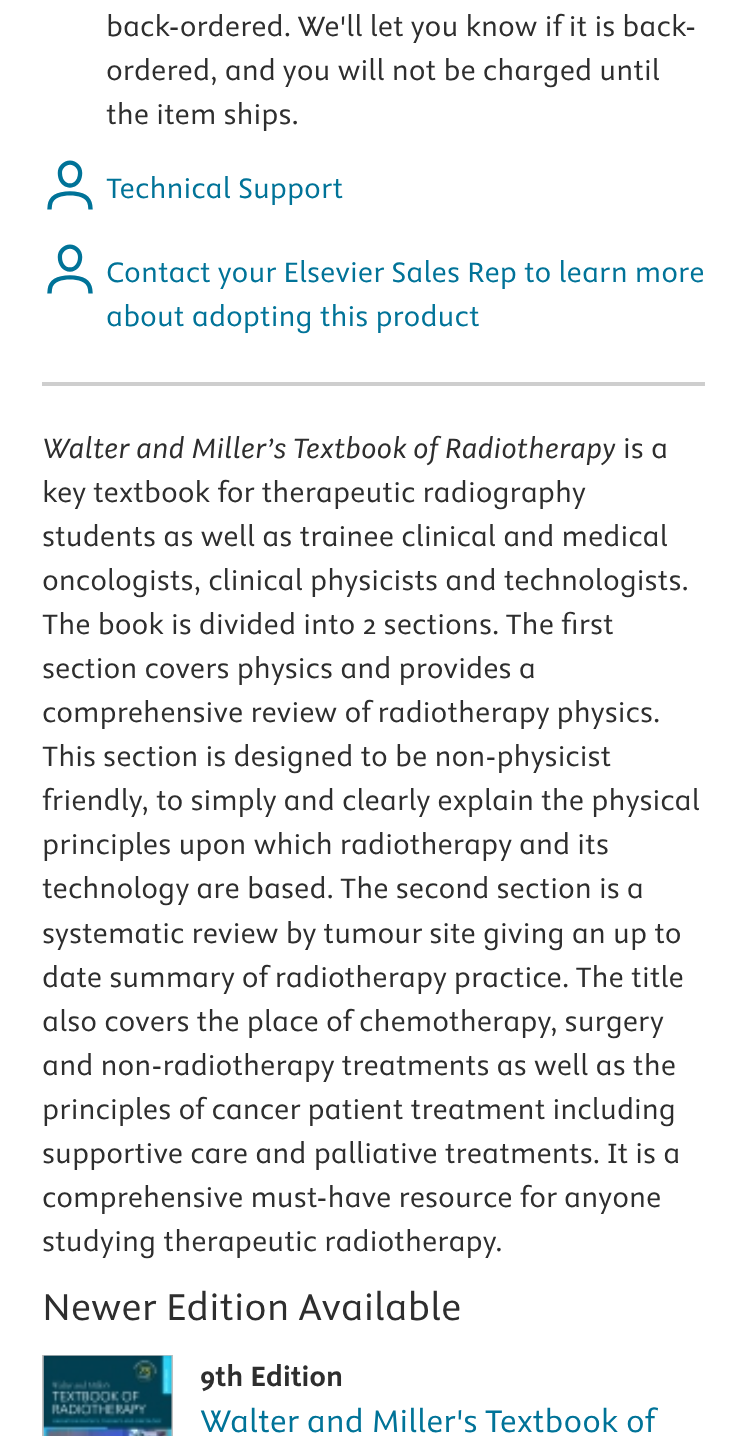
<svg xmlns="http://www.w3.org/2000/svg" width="746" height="1436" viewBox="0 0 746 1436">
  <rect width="100%" height="100%" fill="#ffffff"/>
  <rect x="42" y="382" width="663" height="4" fill="#cecece"/>
  <text x="106" y="36" font-family="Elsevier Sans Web" font-size="31.5" fill="#2e2e2e">back-ordered. We'll let you know if it is back-</text>
  <text x="106" y="80" font-family="Elsevier Sans Web" font-size="31.5" fill="#2e2e2e">ordered, and you will not be charged until</text>
  <text x="106" y="124" font-family="Elsevier Sans Web" font-size="31.5" fill="#2e2e2e">the item ships.</text>
  <image x="47" y="160" width="46" height="50" href="img1.png"/>
  <text x="106" y="198" font-family="Elsevier Sans Web" font-size="31.5" fill="#007398">Technical Support</text>
  <image x="47" y="244" width="46" height="50" href="img2.png"/>
  <text x="106" y="282" font-family="Elsevier Sans Web" font-size="31.5" fill="#007398">Contact your Elsevier Sales Rep to learn more</text>
  <text x="106" y="326" font-family="Elsevier Sans Web" font-size="31.5" fill="#007398">about adopting this product</text>
  <text x="42" y="458" font-family="Elsevier Sans Web" font-size="31.5" font-style="italic" fill="#2e2e2e">Walter and Miller’s Textbook of Radiotherapy</text>
  <text x="623" y="458" font-family="Elsevier Sans Web" font-size="31.5" fill="#2e2e2e">is a</text>
  <text x="42" y="502" font-family="Elsevier Sans Web" font-size="31.5" fill="#2e2e2e">key textbook for therapeutic radiography</text>
  <text x="42" y="546" font-family="Elsevier Sans Web" font-size="31.5" fill="#2e2e2e">students as well as trainee clinical and medical</text>
  <text x="42" y="590" font-family="Elsevier Sans Web" font-size="31.5" fill="#2e2e2e">oncologists, clinical physicists and technologists.</text>
  <text x="42" y="634" font-family="Elsevier Sans Web" font-size="31.5" fill="#2e2e2e">The book is divided into 2 sections. The first</text>
  <text x="42" y="678" font-family="Elsevier Sans Web" font-size="31.5" fill="#2e2e2e">section covers physics and provides a</text>
  <text x="42" y="722" font-family="Elsevier Sans Web" font-size="31.5" fill="#2e2e2e">comprehensive review of radiotherapy physics.</text>
  <text x="42" y="766" font-family="Elsevier Sans Web" font-size="31.5" fill="#2e2e2e">This section is designed to be non-physicist</text>
  <text x="42" y="810" font-family="Elsevier Sans Web" font-size="31.5" fill="#2e2e2e">friendly, to simply and clearly explain the physical</text>
  <text x="42" y="854" font-family="Elsevier Sans Web" font-size="31.5" fill="#2e2e2e">principles upon which radiotherapy and its</text>
  <text x="42" y="898" font-family="Elsevier Sans Web" font-size="31.5" fill="#2e2e2e">technology are based. The second section is a</text>
  <text x="42" y="943" font-family="Elsevier Sans Web" font-size="31.5" fill="#2e2e2e">systematic review by tumour site giving an up to</text>
  <text x="42" y="987" font-family="Elsevier Sans Web" font-size="31.5" fill="#2e2e2e">date summary of radiotherapy practice. The title</text>
  <text x="42" y="1031" font-family="Elsevier Sans Web" font-size="31.5" fill="#2e2e2e">also covers the place of chemotherapy, surgery</text>
  <text x="42" y="1075" font-family="Elsevier Sans Web" font-size="31.5" fill="#2e2e2e">and non-radiotherapy treatments as well as the</text>
  <text x="42" y="1119" font-family="Elsevier Sans Web" font-size="31.5" fill="#2e2e2e">principles of cancer patient treatment including</text>
  <text x="42" y="1163" font-family="Elsevier Sans Web" font-size="31.5" fill="#2e2e2e">supportive care and palliative treatments. It is a</text>
  <text x="42" y="1207" font-family="Elsevier Sans Web" font-size="31.5" fill="#2e2e2e">comprehensive must-have resource for anyone</text>
  <text x="42" y="1251" font-family="Elsevier Sans Web" font-size="31.5" fill="#2e2e2e">studying therapeutic radiotherapy.</text>
  <text x="42" y="1320" font-family="Elsevier Sans Web" font-size="42" fill="#2e2e2e">Newer Edition Available</text>
  <rect x="43" y="1356" width="129" height="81" fill="none" stroke="#c0c0c0" stroke-width="2"/>
  <image x="43" y="1355" width="129" height="81" href="img3.png"/>
  <text x="200" y="1386" font-family="Elsevier Sans Web" font-size="31.5" font-weight="bold" fill="#2e2e2e">9th Edition</text>
  <text x="200" y="1432" font-family="Elsevier Sans Web" font-size="35" fill="#007398">Walter and Miller's Textbook of</text>
</svg>
